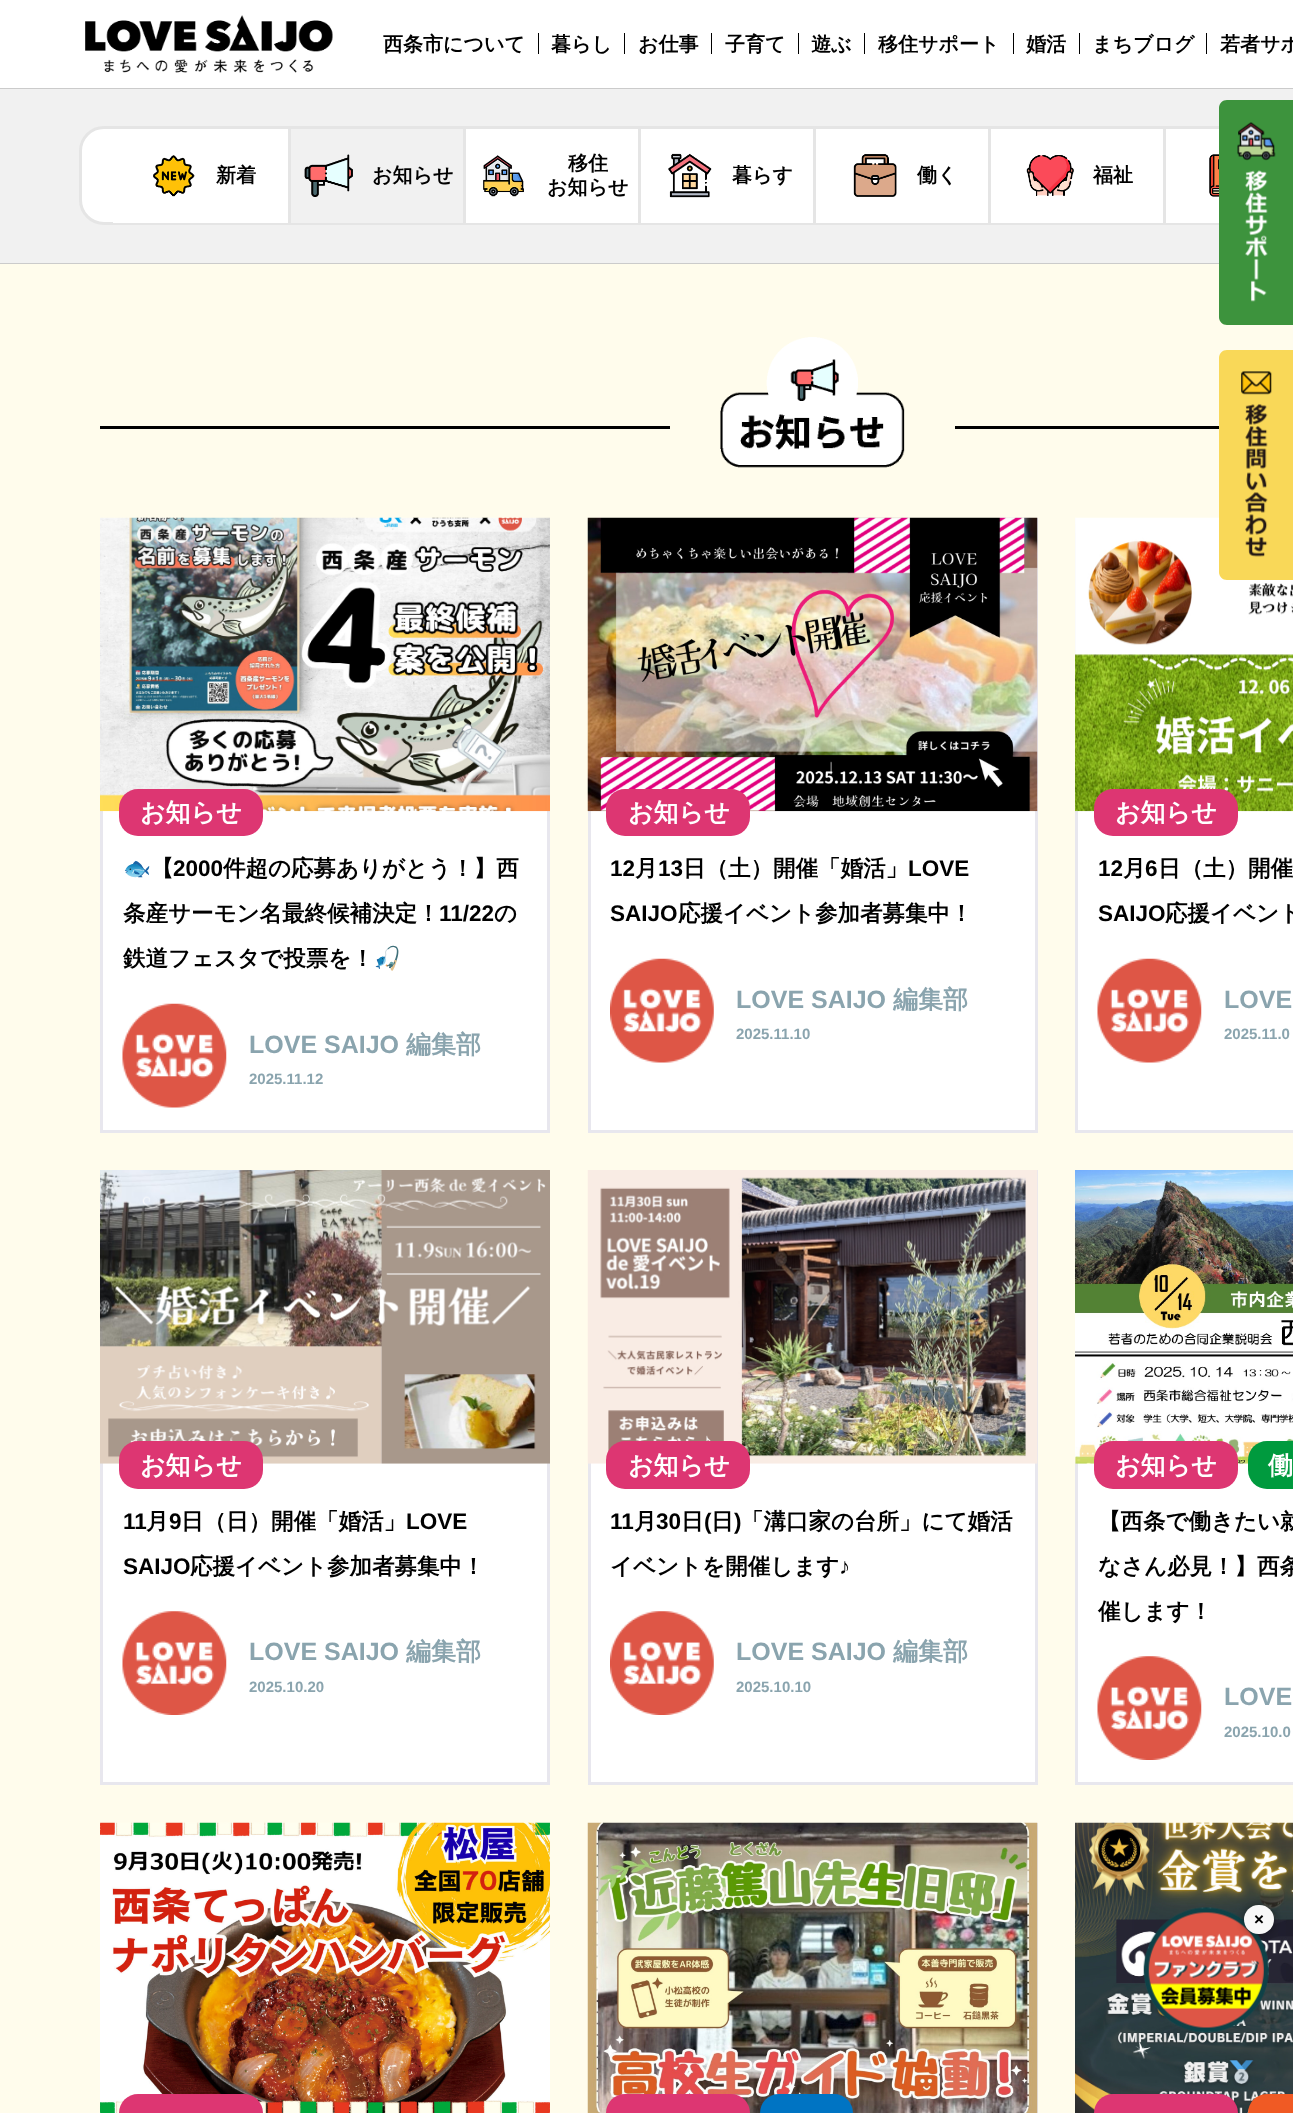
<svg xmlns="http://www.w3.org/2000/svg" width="1293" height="2113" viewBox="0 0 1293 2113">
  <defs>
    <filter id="blur1" x="-50%" y="-200%" width="200%" height="500%"><feGaussianBlur stdDeviation="4.5"/></filter>
  </defs>
  <rect width="100%" height="100%" fill="#ffffff"/>
  <rect x="0" y="88" width="1293" height="1" fill="#cbcbcb"/>
  <image x="85" y="15" width="248" height="58" href="img1.png"/>
  <text x="383" y="51" font-family="WenQuanYi Zen Hei" font-size="20" font-weight="bold" fill="#000000">西条市について</text>
  <text x="551" y="51" font-family="WenQuanYi Zen Hei" font-size="20" font-weight="bold" fill="#000000">暮らし</text>
  <rect x="538" y="33" width="1" height="21" fill="#000000"/>
  <text x="638" y="51" font-family="WenQuanYi Zen Hei" font-size="20" font-weight="bold" fill="#000000">お仕事</text>
  <rect x="624" y="33" width="1" height="21" fill="#000000"/>
  <text x="725" y="51" font-family="WenQuanYi Zen Hei" font-size="20" font-weight="bold" fill="#000000">子育て</text>
  <rect x="711" y="33" width="1" height="21" fill="#000000"/>
  <text x="811" y="51" font-family="WenQuanYi Zen Hei" font-size="20" font-weight="bold" fill="#000000">遊ぶ</text>
  <rect x="798" y="33" width="1" height="21" fill="#000000"/>
  <text x="878" y="51" font-family="WenQuanYi Zen Hei" font-size="20" font-weight="bold" fill="#000000">移住サポート</text>
  <rect x="864" y="33" width="1" height="21" fill="#000000"/>
  <text x="1026" y="51" font-family="WenQuanYi Zen Hei" font-size="20" font-weight="bold" fill="#000000">婚活</text>
  <rect x="1013" y="33" width="1" height="21" fill="#000000"/>
  <text x="1092" y="51" font-family="WenQuanYi Zen Hei" font-size="20" font-weight="bold" fill="#000000">まちブログ</text>
  <rect x="1079" y="33" width="1" height="21" fill="#000000"/>
  <text x="1220" y="51" font-family="WenQuanYi Zen Hei" font-size="20" font-weight="bold" fill="#000000">若者サポ</text>
  <rect x="1206" y="33" width="1" height="21" fill="#000000"/>
  <rect x="0" y="89" width="1293" height="174" fill="#f1f1f1"/>
  <rect x="80.5" y="127.5" width="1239" height="96" rx="23.5" fill="#ffffff" stroke="#e5e5e5" stroke-width="3"/>
  <rect x="0" y="264" width="1293" height="1849" fill="#fffcec"/>
  <path d="M1227 100H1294V325H1227C1222.5 325 1219 321.5 1219 317V108C1219 103.5 1222.5 100 1227 100Z" fill="#3d933d"/>
  <image x="1237" y="122" width="39" height="180" href="img2.png"/>
  <rect x="1078" y="811" width="215" height="319" fill="#ffffff"/>
  <rect x="1076.5" y="519.5" width="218" height="612" fill="none" stroke="#e8e7ee" stroke-width="3"/>
  <image x="1075" y="517" width="218" height="295" href="img16.png"/>
  <path d="M1227 350H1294V580H1227C1222.5 580 1219 576.5 1219 572V358C1219 353.5 1222.5 350 1227 350Z" fill="#f9d858"/>
  <image x="1241" y="371" width="31" height="186" href="img3.png"/>
  <rect x="0" y="263" width="1219" height="1" fill="#cbcbcb"/>
  <rect x="113" y="222" width="175" height="1" fill="#ffffff"/>
  <image x="153" y="155" width="42" height="42" href="img4.png"/>
  <text x="216" y="182" font-family="WenQuanYi Zen Hei" font-size="20" font-weight="bold" fill="#000000">新着</text>
  <rect x="291" y="129" width="172" height="94" fill="#f1f1f1"/>
  <rect x="288" y="129" width="3" height="94" fill="#e5e5e5"/>
  <image x="304" y="154" width="49" height="43" href="img5.png"/>
  <text x="372" y="182" font-family="WenQuanYi Zen Hei" font-size="20" font-weight="bold" fill="#000000">お知らせ</text>
  <rect x="466" y="222" width="172" height="1" fill="#ffffff"/>
  <rect x="463" y="129" width="3" height="94" fill="#e5e5e5"/>
  <image x="483" y="155" width="41" height="42" href="img6.png"/>
  <text x="568" y="170" font-family="WenQuanYi Zen Hei" font-size="20" font-weight="bold" fill="#000000">移住</text>
  <text x="547" y="194" font-family="WenQuanYi Zen Hei" font-size="20" font-weight="bold" fill="#000000">お知らせ</text>
  <rect x="641" y="222" width="172" height="1" fill="#ffffff"/>
  <rect x="638" y="129" width="3" height="94" fill="#e5e5e5"/>
  <image x="668" y="153" width="44" height="45" href="img7.png"/>
  <text x="732" y="182" font-family="WenQuanYi Zen Hei" font-size="20" font-weight="bold" fill="#000000">暮らす</text>
  <rect x="816" y="222" width="172" height="1" fill="#ffffff"/>
  <rect x="813" y="129" width="3" height="94" fill="#e5e5e5"/>
  <image x="853" y="154" width="44" height="43" href="img8.png"/>
  <text x="917" y="182" font-family="WenQuanYi Zen Hei" font-size="20" font-weight="bold" fill="#000000">働く</text>
  <rect x="991" y="222" width="172" height="1" fill="#ffffff"/>
  <rect x="988" y="129" width="3" height="94" fill="#e5e5e5"/>
  <image x="1026" y="155" width="48" height="41" href="img9.png"/>
  <text x="1093" y="182" font-family="WenQuanYi Zen Hei" font-size="20" font-weight="bold" fill="#000000">福祉</text>
  <rect x="1166" y="222" width="53" height="1" fill="#ffffff"/>
  <rect x="1163" y="129" width="3" height="94" fill="#e5e5e5"/>
  <image x="1209" y="154" width="10" height="43" href="img10.png"/>
  <rect x="100" y="426" width="570" height="3" fill="#000000"/>
  <image x="720" y="337" width="185" height="131" href="img11.png"/>
  <rect x="955" y="426" width="264" height="3" fill="#000000"/>
  <rect x="103" y="811" width="444" height="319" fill="#ffffff"/>
  <rect x="101.5" y="519.5" width="447" height="612" fill="none" stroke="#e8e7ee" stroke-width="3"/>
  <image x="100" y="517" width="450" height="295" href="img12.png"/>
  <rect x="119" y="789" width="144" height="47" rx="19" fill="#dd3672"/>
  <text x="140" y="821" font-family="WenQuanYi Zen Hei" font-size="25" font-weight="bold" fill="#ffffff">お知らせ</text>
  <text x="123" y="876" font-family="Noto Color Emoji" font-size="22.5" font-weight="bold" fill="#000000">🐟</text>
  <text x="151" y="876" font-family="WenQuanYi Zen Hei" font-size="22.5" font-weight="bold" fill="#000000">【</text>
  <text x="173" y="876" font-family="Liberation Sans" font-size="22.5" font-weight="bold" fill="#000000">2000</text>
  <text x="223" y="876" font-family="WenQuanYi Zen Hei" font-size="22.5" font-weight="bold" fill="#000000">件超の応募ありがとう！】西</text>
  <text x="123" y="921" font-family="WenQuanYi Zen Hei" font-size="22.5" font-weight="bold" fill="#000000">条産サーモン名最終候補決定！</text>
  <text x="439" y="921" font-family="Liberation Sans" font-size="22.5" font-weight="bold" fill="#000000">11/22</text>
  <text x="494" y="921" font-family="WenQuanYi Zen Hei" font-size="22.5" font-weight="bold" fill="#000000">の</text>
  <text x="123" y="966" font-family="WenQuanYi Zen Hei" font-size="22.5" font-weight="bold" fill="#000000">鉄道フェスタで投票を！</text>
  <text x="373" y="966" font-family="Noto Color Emoji" font-size="22.5" font-weight="bold" fill="#000000">🎣</text>
  <image x="122" y="1003" width="105" height="105" href="img13.png"/>
  <text x="249" y="1053" font-family="Liberation Sans" font-size="25" font-weight="bold" fill="#8aa4ae">LOVE SAIJO</text>
  <text x="406" y="1053" font-family="WenQuanYi Zen Hei" font-size="25" font-weight="bold" fill="#8aa4ae">編集部</text>
  <text x="249" y="1084" font-family="Liberation Sans" font-size="15" font-weight="bold" fill="#8aa4ae">2025.11.12</text>
  <rect x="591" y="811" width="444" height="319" fill="#ffffff"/>
  <rect x="589.5" y="519.5" width="447" height="612" fill="none" stroke="#e8e7ee" stroke-width="3"/>
  <image x="587" y="517" width="451" height="295" href="img14.png"/>
  <rect x="606" y="789" width="144" height="47" rx="19" fill="#dd3672"/>
  <text x="628" y="821" font-family="WenQuanYi Zen Hei" font-size="25" font-weight="bold" fill="#ffffff">お知らせ</text>
  <text x="610" y="876" font-family="Liberation Sans" font-size="22.5" font-weight="bold" fill="#000000">12</text>
  <text x="635" y="876" font-family="WenQuanYi Zen Hei" font-size="22.5" font-weight="bold" fill="#000000">月</text>
  <text x="658" y="876" font-family="Liberation Sans" font-size="22.5" font-weight="bold" fill="#000000">13</text>
  <text x="683" y="876" font-family="WenQuanYi Zen Hei" font-size="22.5" font-weight="bold" fill="#000000">日（土）開催「婚活」</text>
  <text x="908" y="876" font-family="Liberation Sans" font-size="22.5" font-weight="bold" fill="#000000">LOVE</text>
  <text x="610" y="921" font-family="Liberation Sans" font-size="22.5" font-weight="bold" fill="#000000">SAIJO</text>
  <text x="678" y="921" font-family="WenQuanYi Zen Hei" font-size="22.5" font-weight="bold" fill="#000000">応援イベント参加者募集中！</text>
  <image x="610" y="958" width="104" height="105" href="img15.png"/>
  <text x="736" y="1008" font-family="Liberation Sans" font-size="25" font-weight="bold" fill="#8aa4ae">LOVE SAIJO</text>
  <text x="893" y="1008" font-family="WenQuanYi Zen Hei" font-size="25" font-weight="bold" fill="#8aa4ae">編集部</text>
  <text x="736" y="1039" font-family="Liberation Sans" font-size="15" font-weight="bold" fill="#8aa4ae">2025.11.10</text>
  <rect x="1094" y="789" width="144" height="47" rx="19" fill="#dd3672"/>
  <text x="1115" y="821" font-family="WenQuanYi Zen Hei" font-size="25" font-weight="bold" fill="#ffffff">お知らせ</text>
  <text x="1098" y="876" font-family="Liberation Sans" font-size="22.5" font-weight="bold" fill="#000000">12</text>
  <text x="1123" y="876" font-family="WenQuanYi Zen Hei" font-size="22.5" font-weight="bold" fill="#000000">月</text>
  <text x="1145" y="876" font-family="Liberation Sans" font-size="22.5" font-weight="bold" fill="#000000">6</text>
  <text x="1158" y="876" font-family="WenQuanYi Zen Hei" font-size="22.5" font-weight="bold" fill="#000000">日（土）開催</text>
  <text x="1098" y="921" font-family="Liberation Sans" font-size="22.5" font-weight="bold" fill="#000000">SAIJO</text>
  <text x="1165" y="921" font-family="WenQuanYi Zen Hei" font-size="22.5" font-weight="bold" fill="#000000">応援イベント</text>
  <image x="1097" y="958" width="105" height="105" href="img13.png"/>
  <text x="1224" y="1008" font-family="Liberation Sans" font-size="25" font-weight="bold" fill="#8aa4ae">LOVE</text>
  <text x="1224" y="1039" font-family="Liberation Sans" font-size="15" font-weight="bold" fill="#8aa4ae">2025.11.0</text>
  <rect x="103" y="1463" width="444" height="319" fill="#ffffff"/>
  <rect x="101.5" y="1171.5" width="447" height="612" fill="none" stroke="#e8e7ee" stroke-width="3"/>
  <image x="100" y="1170" width="450" height="294" href="img17.png"/>
  <rect x="119" y="1441" width="144" height="48" rx="19" fill="#dd3672"/>
  <text x="140" y="1474" font-family="WenQuanYi Zen Hei" font-size="25" font-weight="bold" fill="#ffffff">お知らせ</text>
  <text x="123" y="1529" font-family="Liberation Sans" font-size="22.5" font-weight="bold" fill="#000000">11</text>
  <text x="146" y="1529" font-family="WenQuanYi Zen Hei" font-size="22.5" font-weight="bold" fill="#000000">月</text>
  <text x="169" y="1529" font-family="Liberation Sans" font-size="22.5" font-weight="bold" fill="#000000">9</text>
  <text x="181" y="1529" font-family="WenQuanYi Zen Hei" font-size="22.5" font-weight="bold" fill="#000000">日（日）開催「婚活」</text>
  <text x="406" y="1529" font-family="Liberation Sans" font-size="22.5" font-weight="bold" fill="#000000">LOVE</text>
  <text x="123" y="1574" font-family="Liberation Sans" font-size="22.5" font-weight="bold" fill="#000000">SAIJO</text>
  <text x="190" y="1574" font-family="WenQuanYi Zen Hei" font-size="22.5" font-weight="bold" fill="#000000">応援イベント参加者募集中！</text>
  <image x="122" y="1611" width="105" height="104" href="img18.png"/>
  <text x="249" y="1660" font-family="Liberation Sans" font-size="25" font-weight="bold" fill="#8aa4ae">LOVE SAIJO</text>
  <text x="406" y="1660" font-family="WenQuanYi Zen Hei" font-size="25" font-weight="bold" fill="#8aa4ae">編集部</text>
  <text x="249" y="1692" font-family="Liberation Sans" font-size="15" font-weight="bold" fill="#8aa4ae">2025.10.20</text>
  <rect x="591" y="1463" width="444" height="319" fill="#ffffff"/>
  <rect x="589.5" y="1171.5" width="447" height="612" fill="none" stroke="#e8e7ee" stroke-width="3"/>
  <image x="587" y="1170" width="451" height="294" href="img19.png"/>
  <rect x="606" y="1441" width="144" height="48" rx="19" fill="#dd3672"/>
  <text x="628" y="1474" font-family="WenQuanYi Zen Hei" font-size="25" font-weight="bold" fill="#ffffff">お知らせ</text>
  <text x="610" y="1529" font-family="Liberation Sans" font-size="22.5" font-weight="bold" fill="#000000">11</text>
  <text x="634" y="1529" font-family="WenQuanYi Zen Hei" font-size="22.5" font-weight="bold" fill="#000000">月</text>
  <text x="656" y="1529" font-family="Liberation Sans" font-size="22.5" font-weight="bold" fill="#000000">30</text>
  <text x="681" y="1529" font-family="WenQuanYi Zen Hei" font-size="22.5" font-weight="bold" fill="#000000">日</text>
  <text x="704" y="1529" font-family="Liberation Sans" font-size="22.5" font-weight="bold" fill="#000000">(</text>
  <text x="711" y="1529" font-family="WenQuanYi Zen Hei" font-size="22.5" font-weight="bold" fill="#000000">日</text>
  <text x="734" y="1529" font-family="Liberation Sans" font-size="22.5" font-weight="bold" fill="#000000">)</text>
  <text x="741" y="1529" font-family="WenQuanYi Zen Hei" font-size="22.5" font-weight="bold" fill="#000000">「溝口家の台所」にて婚活</text>
  <text x="610" y="1574" font-family="WenQuanYi Zen Hei" font-size="22.5" font-weight="bold" fill="#000000">イベントを開催します</text>
  <text x="839" y="1574" font-family="Liberation Sans" font-size="22.5" font-weight="bold" fill="#000000">♪</text>
  <image x="610" y="1611" width="104" height="104" href="img20.png"/>
  <text x="736" y="1660" font-family="Liberation Sans" font-size="25" font-weight="bold" fill="#8aa4ae">LOVE SAIJO</text>
  <text x="893" y="1660" font-family="WenQuanYi Zen Hei" font-size="25" font-weight="bold" fill="#8aa4ae">編集部</text>
  <text x="736" y="1692" font-family="Liberation Sans" font-size="15" font-weight="bold" fill="#8aa4ae">2025.10.10</text>
  <rect x="1078" y="1463" width="215" height="319" fill="#ffffff"/>
  <rect x="1076.5" y="1171.5" width="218" height="612" fill="none" stroke="#e8e7ee" stroke-width="3"/>
  <image x="1075" y="1170" width="218" height="294" href="img21.png"/>
  <rect x="1094" y="1441" width="144" height="48" rx="19" fill="#dd3672"/>
  <text x="1115" y="1474" font-family="WenQuanYi Zen Hei" font-size="25" font-weight="bold" fill="#ffffff">お知らせ</text>
  <rect x="1248" y="1441" width="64" height="48" rx="19" fill="#009a3e"/>
  <text x="1268" y="1474" font-family="WenQuanYi Zen Hei" font-size="25" font-weight="bold" fill="#ffffff">働</text>
  <text x="1098" y="1529" font-family="WenQuanYi Zen Hei" font-size="22.5" font-weight="bold" fill="#000000">【西条で働きたい就</text>
  <text x="1098" y="1574" font-family="WenQuanYi Zen Hei" font-size="22.5" font-weight="bold" fill="#000000">なさん必見！】西条</text>
  <text x="1098" y="1619" font-family="WenQuanYi Zen Hei" font-size="22.5" font-weight="bold" fill="#000000">催します！</text>
  <image x="1097" y="1656" width="105" height="104" href="img18.png"/>
  <text x="1224" y="1705" font-family="Liberation Sans" font-size="25" font-weight="bold" fill="#8aa4ae">LOVE</text>
  <text x="1224" y="1737" font-family="Liberation Sans" font-size="15" font-weight="bold" fill="#8aa4ae">2025.10.0</text>
  <image x="100" y="1822" width="450" height="291" href="img22.png"/>
  <rect x="119" y="2094" width="144" height="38" rx="19" fill="#dd3672"/>
  <rect x="589.5" y="1824.5" width="447" height="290" fill="none" stroke="#e8e7ee" stroke-width="3"/>
  <image x="587" y="1822" width="451" height="291" href="img23.png"/>
  <rect x="606" y="2094" width="144" height="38" rx="19" fill="#dd3672"/>
  <rect x="760" y="2094" width="93" height="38" rx="19" fill="#0074c3"/>
  <image x="1075" y="1822" width="218" height="291" href="img24.png"/>
  <rect x="1094" y="2094" width="144" height="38" rx="19" fill="#dd3672"/>
  <rect x="1248" y="2094" width="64" height="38" rx="19" fill="#f05a24"/>
  <image x="1143" y="1907" width="126" height="126" href="img25.png"/>
  <rect x="1244" y="1905" width="30" height="29" rx="14.5" fill="#000000" fill-opacity="0.4" filter="url(#blur1)"/>
  <rect x="1244" y="1905" width="30" height="29" rx="14.5" fill="#f8f8f8"/>
  <text x="1254" y="1925" font-family="Liberation Sans" font-size="17" font-weight="bold" fill="#000000">×</text>
</svg>
